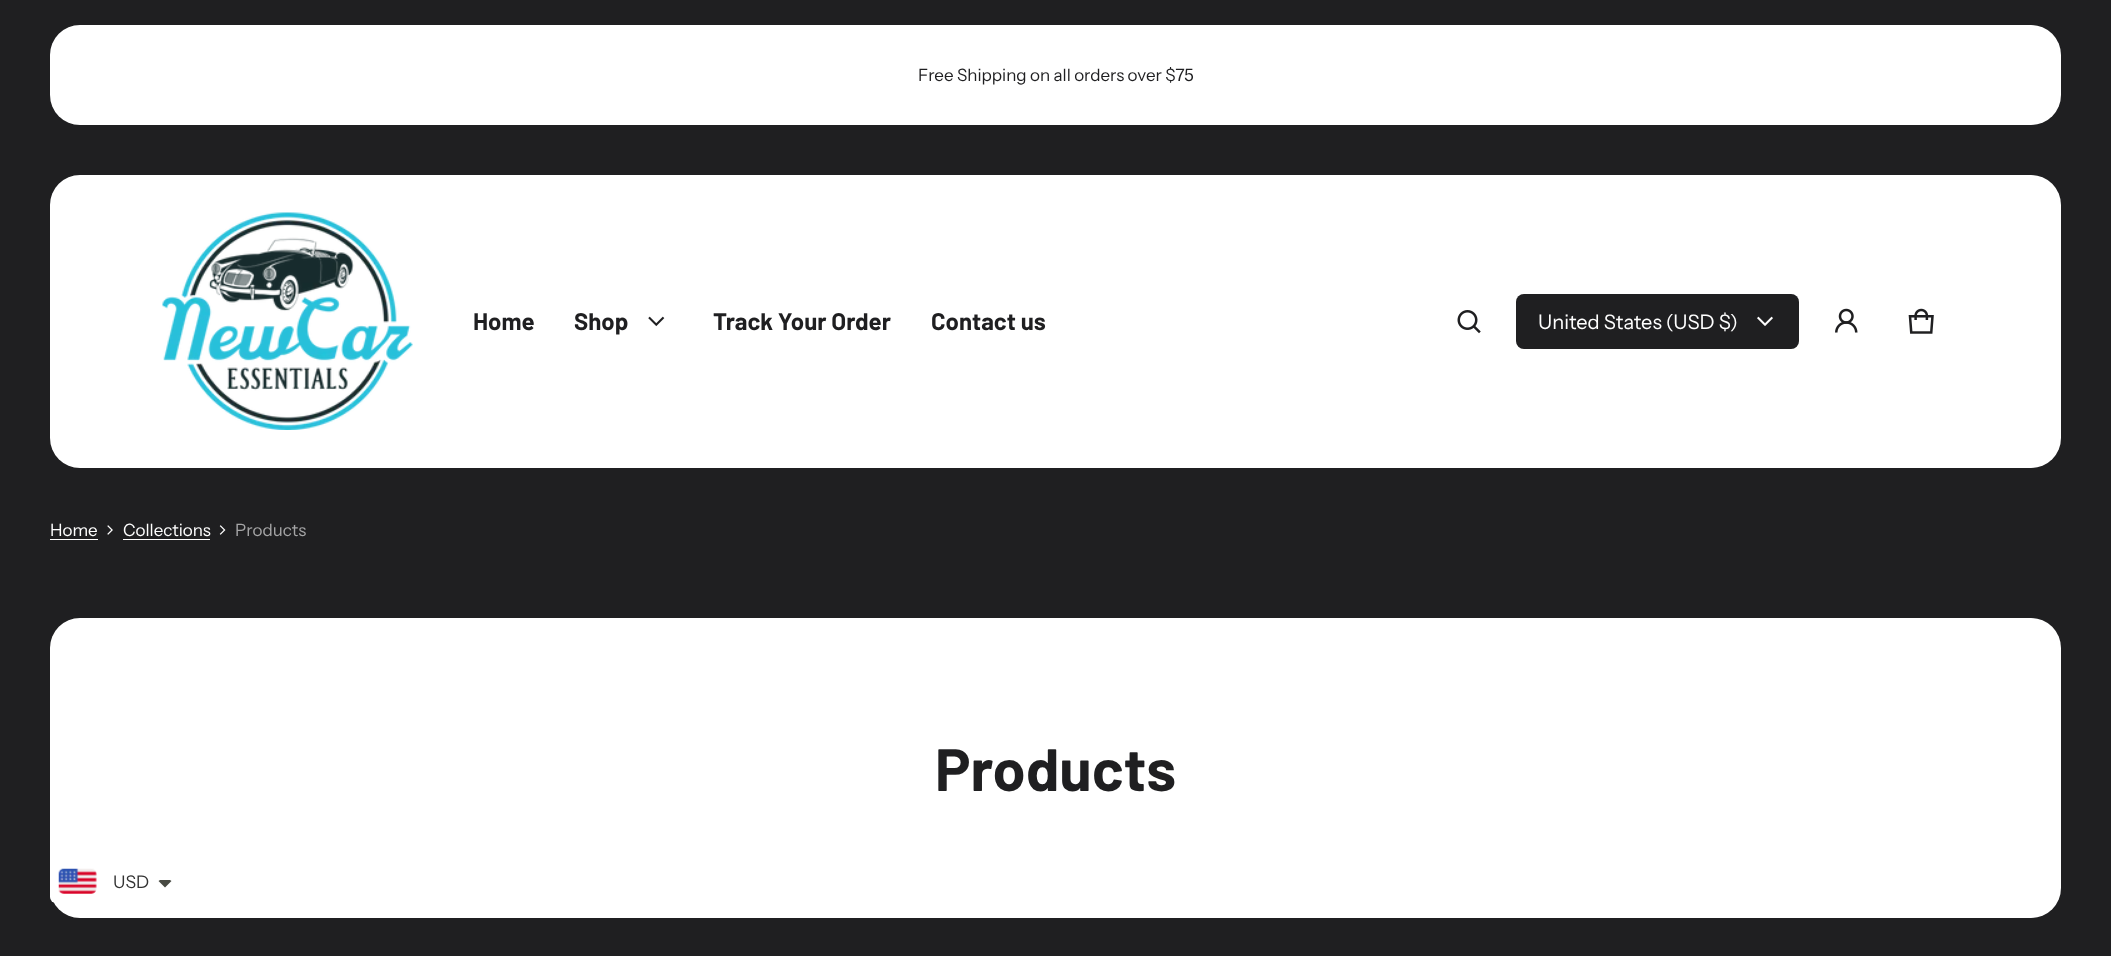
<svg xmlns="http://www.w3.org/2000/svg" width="2111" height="956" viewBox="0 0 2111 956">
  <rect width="100%" height="100%" fill="#1f1f21"/>
  <rect x="50" y="25" width="2011" height="100" rx="30" fill="#ffffff"/>
  <text x="918" y="81" font-family="Instrument Sans" font-size="17" fill="#1f1f21">Free Shipping on all orders over $75</text>
  <rect x="50" y="175" width="2011" height="293" rx="30" fill="#ffffff"/>
  <image x="162" y="212" width="251" height="218" href="img1.png"/>
  <text x="473" y="330" font-family="Barlow" font-size="24" font-weight="bold" fill="#1f1f21">Home</text>
  <text x="574" y="330" font-family="Barlow" font-size="24" font-weight="bold" fill="#1f1f21">Shop</text>
  <image x="648" y="316" width="17" height="11" href="img2.png"/>
  <text x="713" y="330" font-family="Barlow" font-size="24" font-weight="bold" fill="#1f1f21">Track Your Order</text>
  <text x="931" y="330" font-family="Barlow" font-size="24" font-weight="bold" fill="#1f1f21">Contact us</text>
  <image x="1457" y="310" width="24" height="24" href="img3.png"/>
  <rect x="1516" y="294" width="283" height="55" rx="8" fill="#1f1f21"/>
  <rect x="1516.5" y="294.5" width="282" height="54" rx="7.5" fill="none" stroke="#1f1f21" stroke-opacity="0.12"/>
  <text x="1538" y="329" font-family="Instrument Sans" font-size="20" fill="#ffffff">United States (USD $)</text>
  <image x="1757" y="316" width="16" height="10" href="img4.png"/>
  <image x="1835" y="308" width="23" height="25" href="img5.png"/>
  <image x="1908" y="308" width="26" height="26" href="img6.png"/>
  <text x="50" y="536" font-family="Instrument Sans" font-size="17" fill="#ffffff">Home</text>
  <rect x="50" y="539" width="48" height="1" fill="#ffffff"/>
  <image x="107" y="525" width="6" height="10" href="img7.png"/>
  <text x="123" y="536" font-family="Instrument Sans" font-size="17" fill="#ffffff">Collections</text>
  <rect x="123" y="539" width="87" height="1" fill="#ffffff"/>
  <image x="219" y="525" width="7" height="10" href="img8.png"/>
  <text x="235" y="536" font-family="Instrument Sans" font-size="17" fill="#a5a5a6">Products</text>
  <rect x="50" y="618" width="2011" height="300" rx="30" fill="#ffffff"/>
  <text x="935" y="791" font-family="Barlow" font-size="59.5" font-weight="bold" fill="#1f1f21">Products</text>
  <rect x="50" y="860" width="131" height="43" rx="6" fill="#ffffff"/>
  <image x="58" y="868" width="39" height="26" href="img9.png"/>
  <text x="113" y="888" font-family="Instrument Sans" font-size="17.5" fill="#333333">USD</text>
  <path d="M161 880C160 880 159 880.5 158.5 881L165 887.5L171.5 881C171 880.5 170 880 169 880Z" fill="#474942"/>
</svg>
